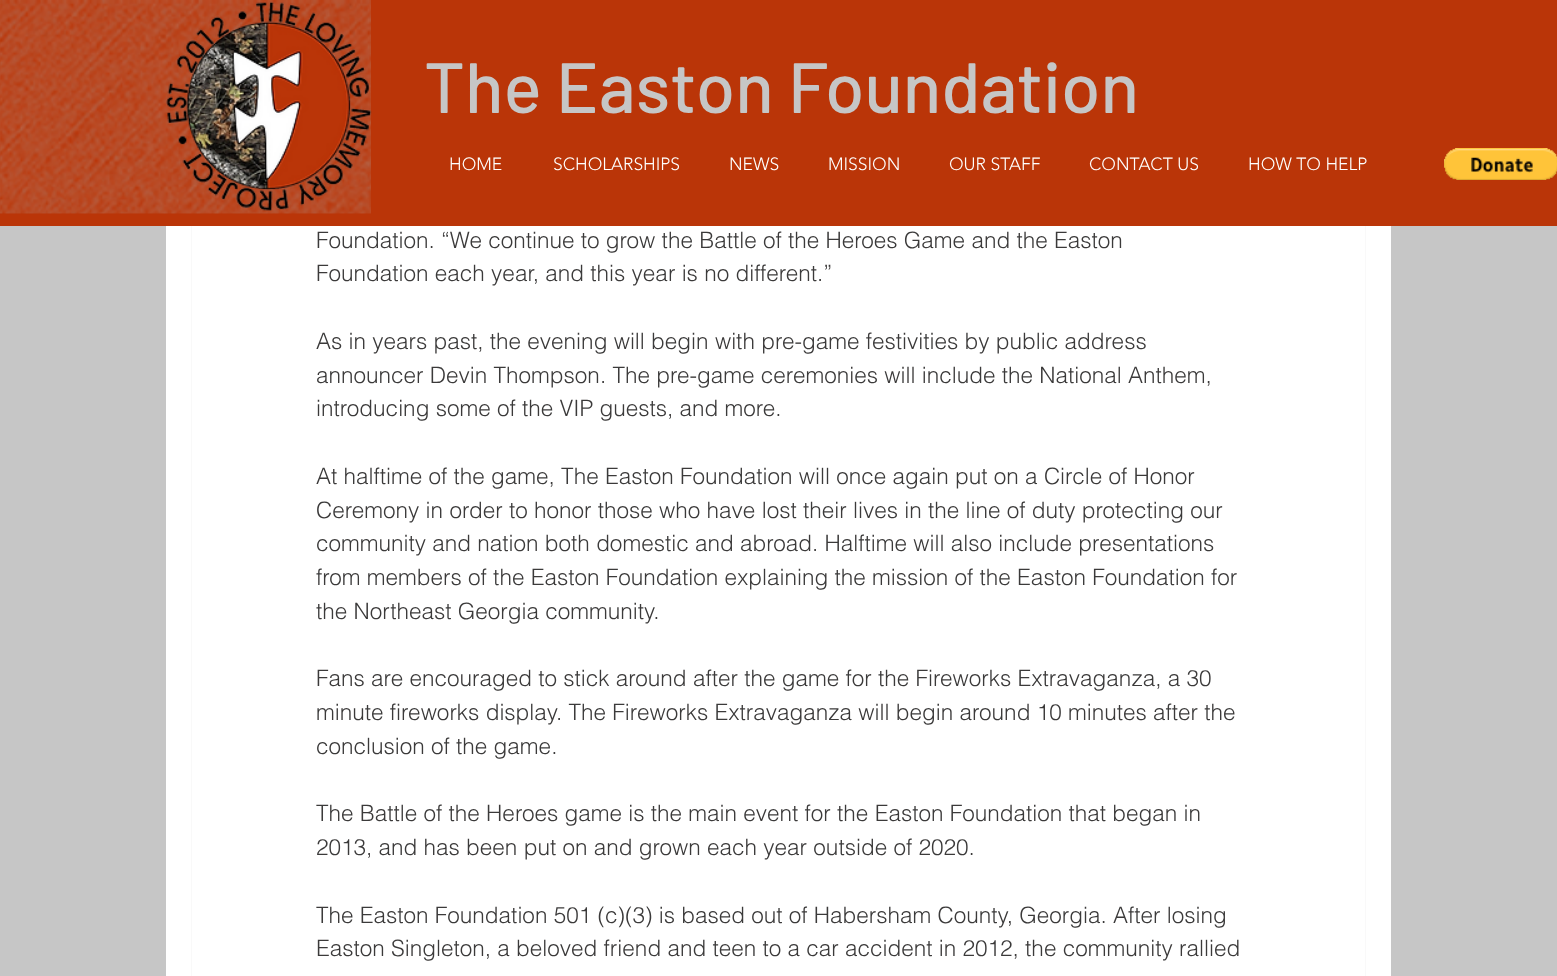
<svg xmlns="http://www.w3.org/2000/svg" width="1557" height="976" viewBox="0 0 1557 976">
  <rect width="100%" height="100%" fill="#c6c6c6"/>
  <rect x="166" y="226" width="1225" height="750" fill="#ffffff"/>
  <rect x="191.5" y="-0.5" width="1174" height="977" fill="none" stroke="#f9f9f9"/>
  <rect x="0" y="0" width="1557" height="226" fill="#ba3508"/>
  <image x="0" y="0" width="371" height="214" href="img1.png"/>
  <image x="166" y="1" width="206" height="210" href="img2.png"/>
  <text x="424" y="113" font-family="Barlow" font-size="71.25" font-weight="500" fill="#c6c6c6">The Easton Foundation</text>
  <text x="449" y="170" font-family="'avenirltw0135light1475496'" font-size="17.5" font-weight="300" fill="#fffffe">HOME</text>
  <text x="553" y="170" font-family="'avenirltw0135light1475496'" font-size="17.5" font-weight="300" fill="#fffffe">SCHOLARSHIPS</text>
  <text x="729" y="170" font-family="'avenirltw0135light1475496'" font-size="17.5" font-weight="300" fill="#fffffe">NEWS</text>
  <text x="828" y="170" font-family="'avenirltw0135light1475496'" font-size="17.5" font-weight="300" fill="#fffffe">MISSION</text>
  <text x="949" y="170" font-family="'avenirltw0135light1475496'" font-size="17.5" font-weight="300" fill="#fffffe">OUR STAFF</text>
  <text x="1089" y="170" font-family="'avenirltw0135light1475496'" font-size="17.5" font-weight="300" fill="#fffffe">CONTACT US</text>
  <text x="1248" y="170" font-family="'avenirltw0135light1475496'" font-size="17.5" font-weight="300" fill="#fffffe">HOW TO HELP</text>
  <image x="1444" y="148" width="113" height="32" href="img3.png"/>
  <text x="316" y="248" font-family="helvetica" font-size="22.5" font-weight="300" fill="#3b3a3a">Foundation. “We continue to grow the Battle of the Heroes Game and the Easton</text>
  <text x="316" y="281" font-family="helvetica" font-size="22.5" font-weight="300" fill="#3b3a3a">Foundation each year, and this year is no different.”</text>
  <text x="316" y="349" font-family="helvetica" font-size="22.5" font-weight="300" fill="#3b3a3a">As in years past, the evening will begin with pre-game festivities by public address</text>
  <text x="316" y="383" font-family="helvetica" font-size="22.5" font-weight="300" fill="#3b3a3a">announcer Devin Thompson. The pre-game ceremonies will include the National Anthem,</text>
  <text x="316" y="416" font-family="helvetica" font-size="22.5" font-weight="300" fill="#3b3a3a">introducing some of the VIP guests, and more.</text>
  <text x="316" y="484" font-family="helvetica" font-size="22.5" font-weight="300" fill="#3b3a3a">At halftime of the game, The Easton Foundation will once again put on a Circle of Honor</text>
  <text x="316" y="518" font-family="helvetica" font-size="22.5" font-weight="300" fill="#3b3a3a">Ceremony in order to honor those who have lost their lives in the line of duty protecting our</text>
  <text x="316" y="551" font-family="helvetica" font-size="22.5" font-weight="300" fill="#3b3a3a">community and nation both domestic and abroad. Halftime will also include presentations</text>
  <text x="316" y="585" font-family="helvetica" font-size="22.5" font-weight="300" fill="#3b3a3a">from members of the Easton Foundation explaining the mission of the Easton Foundation for</text>
  <text x="316" y="619" font-family="helvetica" font-size="22.5" font-weight="300" fill="#3b3a3a">the Northeast Georgia community.</text>
  <text x="316" y="686" font-family="helvetica" font-size="22.5" font-weight="300" fill="#3b3a3a">Fans are encouraged to stick around after the game for the Fireworks Extravaganza, a 30</text>
  <text x="316" y="720" font-family="helvetica" font-size="22.5" font-weight="300" fill="#3b3a3a">minute fireworks display. The Fireworks Extravaganza will begin around 10 minutes after the</text>
  <text x="316" y="754" font-family="helvetica" font-size="22.5" font-weight="300" fill="#3b3a3a">conclusion of the game.</text>
  <text x="316" y="821" font-family="helvetica" font-size="22.5" font-weight="300" fill="#3b3a3a">The Battle of the Heroes game is the main event for the Easton Foundation that began in</text>
  <text x="316" y="855" font-family="helvetica" font-size="22.5" font-weight="300" fill="#3b3a3a">2013, and has been put on and grown each year outside of 2020.</text>
  <text x="316" y="923" font-family="helvetica" font-size="22.5" font-weight="300" fill="#3b3a3a">The Easton Foundation 501 (c)(3) is based out of Habersham County, Georgia. After losing</text>
  <text x="316" y="956" font-family="helvetica" font-size="22.5" font-weight="300" fill="#3b3a3a">Easton Singleton, a beloved friend and teen to a car accident in 2012, the community rallied</text>
</svg>
